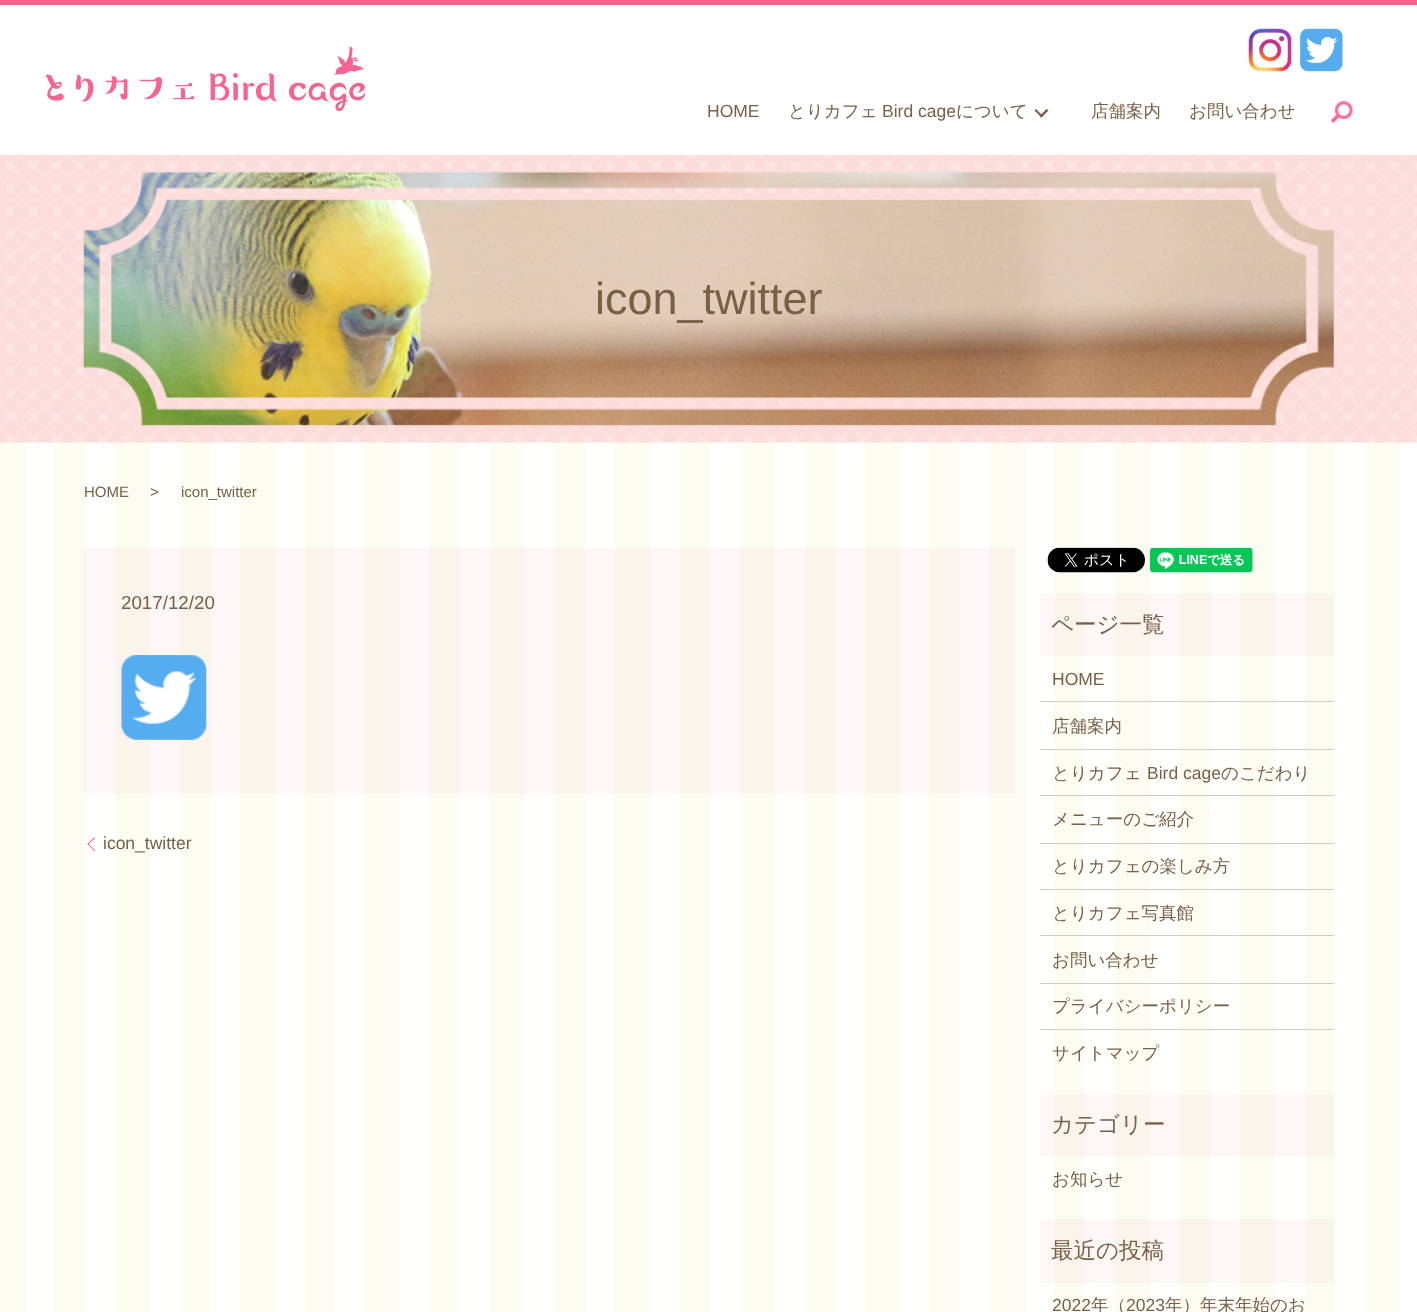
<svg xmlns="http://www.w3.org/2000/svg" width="1417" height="1312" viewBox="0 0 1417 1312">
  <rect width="100%" height="100%" fill="#ffffff"/>
  <image x="0" y="442" width="1401" height="870" href="img1.png"/>
  <rect x="0" y="0" width="1417" height="5" fill="#f5638f"/>
  <image x="45" y="46" width="321" height="65" href="img2.png"/>
  <image x="1248" y="28" width="44" height="44" href="img3.png"/>
  <image x="1300" y="28" width="43" height="44" href="img4.png"/>
  <text x="707" y="117" font-family="Liberation Sans" font-size="17.5" fill="#795f44">HOME</text>
  <text x="788" y="117" font-family="WenQuanYi Zen Hei" font-size="17.5" font-weight="500" fill="#795f44">とりカフェ</text>
  <text x="882" y="117" font-family="Liberation Sans" font-size="17.5" fill="#795f44">Bird cage</text>
  <text x="956" y="117" font-family="WenQuanYi Zen Hei" font-size="17.5" font-weight="500" fill="#795f44">について</text>
  <path d="M1048.5 110.5L1041.5 117.5L1039.5 116L1046.5 109Z" fill="#795f44"/>
  <path d="M1043 116L1041.5 117.5L1034.5 110.5L1036 109Z" fill="#795f44"/>
  <text x="1091" y="117" font-family="WenQuanYi Zen Hei" font-size="17.5" font-weight="500" fill="#795f44">店舗案内</text>
  <text x="1189" y="117" font-family="WenQuanYi Zen Hei" font-size="17.5" font-weight="500" fill="#795f44">お問い合わせ</text>
  <image x="1331" y="101" width="22" height="22" href="img5.png"/>
  <image x="0" y="155" width="1417" height="288" href="img6.png"/>
  <text x="595" y="314" font-family="Liberation Sans" font-size="45" fill="#795f44">icon_twitter</text>
  <text x="84" y="497" font-family="Liberation Sans" font-size="15" fill="#795f44">HOME</text>
  <text x="150" y="497" font-family="Liberation Sans" font-size="15" fill="#795f44">&gt;</text>
  <text x="181" y="497" font-family="Liberation Sans" font-size="15" fill="#795f44">icon_twitter</text>
  <rect x="84" y="548" width="931" height="246" fill="#f5638f" fill-opacity="0.05"/>
  <text x="121" y="609" font-family="Liberation Sans" font-size="18.75" fill="#795f44">2017/12/20</text>
  <image x="121" y="655" width="86" height="85" href="img7.png"/>
  <path d="M87.5 844L94.5 837L95 838L88 845Z" fill="#f5638f"/>
  <text x="103" y="849" font-family="Liberation Sans" font-size="17.5" fill="#795f44">icon_twitter</text>
  <path d="M94.5 851.5L87.5 844L88 843.5L95 850.5Z" fill="#f5638f"/>
  <image x="1047" y="547" width="98" height="26" href="img8.png"/>
  <image x="1150" y="547" width="103" height="26" href="img9.png"/>
  <rect x="1040" y="594" width="294" height="62" fill="#f5638f" fill-opacity="0.05"/>
  <text x="1051" y="632" font-family="WenQuanYi Zen Hei" font-size="22.5" font-weight="500" fill="#795f44">ページ一覧</text>
  <rect x="1040" y="701" width="294" height="1" fill="#cccccc"/>
  <text x="1052" y="685" font-family="Liberation Sans" font-size="17.5" fill="#795f44">HOME</text>
  <rect x="1040" y="749" width="294" height="1" fill="#cccccc"/>
  <text x="1052" y="732" font-family="WenQuanYi Zen Hei" font-size="17.5" font-weight="500" fill="#795f44">店舗案内</text>
  <rect x="1040" y="795" width="294" height="1" fill="#cccccc"/>
  <text x="1052" y="779" font-family="WenQuanYi Zen Hei" font-size="17.5" font-weight="500" fill="#795f44">とりカフェ</text>
  <text x="1147" y="779" font-family="Liberation Sans" font-size="17.5" fill="#795f44">Bird cage</text>
  <text x="1221" y="779" font-family="WenQuanYi Zen Hei" font-size="17.5" font-weight="500" fill="#795f44">のこだわり</text>
  <rect x="1040" y="843" width="294" height="1" fill="#cccccc"/>
  <text x="1052" y="825" font-family="WenQuanYi Zen Hei" font-size="17.5" font-weight="500" fill="#795f44">メニューのご紹介</text>
  <rect x="1040" y="889" width="294" height="1" fill="#cccccc"/>
  <text x="1052" y="872" font-family="WenQuanYi Zen Hei" font-size="17.5" font-weight="500" fill="#795f44">とりカフェの楽しみ方</text>
  <rect x="1040" y="935" width="294" height="1" fill="#cccccc"/>
  <text x="1052" y="919" font-family="WenQuanYi Zen Hei" font-size="17.5" font-weight="500" fill="#795f44">とりカフェ写真館</text>
  <rect x="1040" y="983" width="294" height="1" fill="#cccccc"/>
  <text x="1052" y="966" font-family="WenQuanYi Zen Hei" font-size="17.5" font-weight="500" fill="#795f44">お問い合わせ</text>
  <rect x="1040" y="1029" width="294" height="1" fill="#cccccc"/>
  <text x="1052" y="1012" font-family="WenQuanYi Zen Hei" font-size="17.5" font-weight="500" fill="#795f44">プライバシーポリシー</text>
  <text x="1052" y="1059" font-family="WenQuanYi Zen Hei" font-size="17.5" font-weight="500" fill="#795f44">サイトマップ</text>
  <rect x="1040" y="1094" width="294" height="62" fill="#f5638f" fill-opacity="0.05"/>
  <text x="1051" y="1132" font-family="WenQuanYi Zen Hei" font-size="22.5" font-weight="500" fill="#795f44">カテゴリー</text>
  <text x="1052" y="1185" font-family="WenQuanYi Zen Hei" font-size="17.5" font-weight="500" fill="#795f44">お知らせ</text>
  <rect x="1040" y="1219" width="294" height="64" fill="#f5638f" fill-opacity="0.05"/>
  <text x="1051" y="1258" font-family="WenQuanYi Zen Hei" font-size="22.5" font-weight="500" fill="#795f44">最近の投稿</text>
  <text x="1052" y="1311" font-family="Liberation Sans" font-size="17.5" fill="#795f44">2022</text>
  <text x="1091" y="1311" font-family="WenQuanYi Zen Hei" font-size="17.5" font-weight="500" fill="#795f44">年（</text>
  <text x="1126" y="1311" font-family="Liberation Sans" font-size="17.5" fill="#795f44">2023</text>
  <text x="1165" y="1311" font-family="WenQuanYi Zen Hei" font-size="17.5" font-weight="500" fill="#795f44">年）年末年始のお</text>
</svg>
